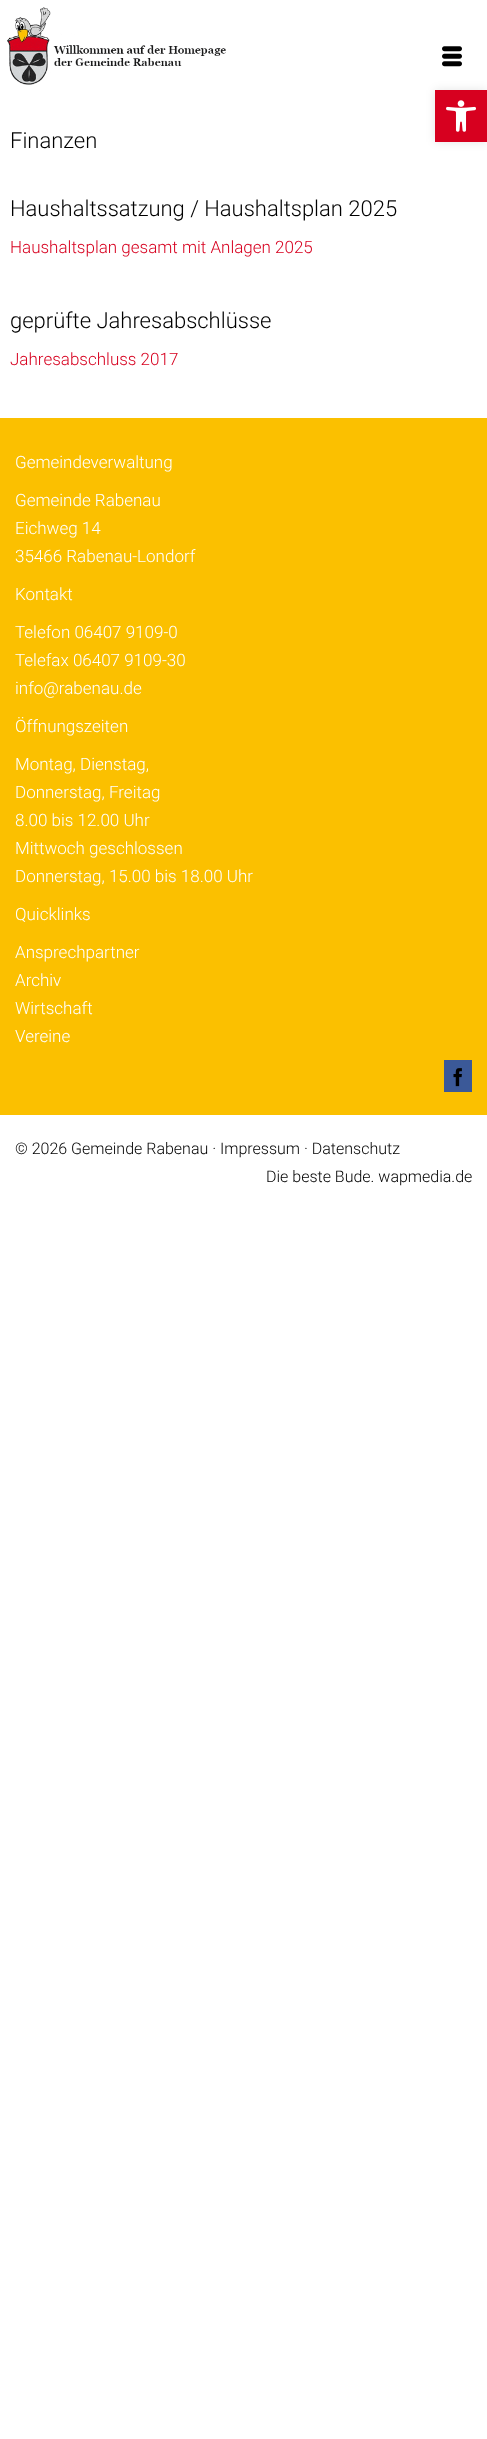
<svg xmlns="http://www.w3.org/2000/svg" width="487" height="2439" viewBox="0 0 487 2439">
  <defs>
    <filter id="blur1" x="-50%" y="-200%" width="200%" height="500%"><feGaussianBlur stdDeviation="5"/></filter>
  </defs>
  <rect width="100%" height="100%" fill="#ffffff"/>
  <rect x="435" y="90" width="52" height="52" fill="#000000" fill-opacity="0.1" filter="url(#blur1)"/>
  <rect x="435" y="90" width="52" height="52" fill="#d7001f"/>
  <image x="446" y="100" width="30" height="32" href="img1.png"/>
  <image x="7" y="7" width="219" height="78" href="img2.png"/>
  <image x="442" y="46" width="20" height="21" href="img3.png"/>
  <text x="10" y="148" font-family="Roboto" font-size="22" font-weight="300" fill="#000000">Finanzen</text>
  <text x="10" y="216" font-family="Roboto" font-size="22" font-weight="300" fill="#000000">Haushaltssatzung / Haushaltsplan 2025</text>
  <text x="10" y="253" font-family="Roboto" font-size="17" font-weight="300" fill="#d7001f">Haushaltsplan gesamt mit Anlagen 2025</text>
  <text x="10" y="328" font-family="Roboto" font-size="22" font-weight="300" fill="#000000">geprüfte Jahresabschlüsse</text>
  <text x="10" y="365" font-family="Roboto" font-size="17" font-weight="300" fill="#d7001f">Jahresabschluss 2017</text>
  <rect x="0" y="418" width="487" height="697" fill="#fbc000"/>
  <text x="15" y="468" font-family="Roboto" font-size="17" font-weight="300" fill="#ffffff">Gemeindeverwaltung</text>
  <text x="15" y="506" font-family="Roboto" font-size="17" font-weight="300" fill="#ffffff">Gemeinde Rabenau</text>
  <text x="15" y="534" font-family="Roboto" font-size="17" font-weight="300" fill="#ffffff">Eichweg 14</text>
  <text x="15" y="562" font-family="Roboto" font-size="17" font-weight="300" fill="#ffffff">35466 Rabenau-Londorf</text>
  <text x="15" y="600" font-family="Roboto" font-size="17" font-weight="300" fill="#ffffff">Kontakt</text>
  <text x="15" y="638" font-family="Roboto" font-size="17" font-weight="300" fill="#ffffff">Telefon 06407 9109-0</text>
  <text x="15" y="666" font-family="Roboto" font-size="17" font-weight="300" fill="#ffffff">Telefax 06407 9109-30</text>
  <text x="15" y="694" font-family="Roboto" font-size="17" font-weight="300" fill="#ffffff">info@rabenau.de</text>
  <text x="15" y="732" font-family="Roboto" font-size="17" font-weight="300" fill="#ffffff">Öffnungszeiten</text>
  <text x="15" y="770" font-family="Roboto" font-size="17" font-weight="300" fill="#ffffff">Montag, Dienstag,</text>
  <text x="15" y="798" font-family="Roboto" font-size="17" font-weight="300" fill="#ffffff">Donnerstag, Freitag</text>
  <text x="15" y="826" font-family="Roboto" font-size="17" font-weight="300" fill="#ffffff">8.00 bis 12.00 Uhr</text>
  <text x="15" y="854" font-family="Roboto" font-size="17" font-weight="300" fill="#ffffff">Mittwoch geschlossen</text>
  <text x="15" y="882" font-family="Roboto" font-size="17" font-weight="300" fill="#ffffff">Donnerstag, 15.00 bis 18.00 Uhr</text>
  <text x="15" y="920" font-family="Roboto" font-size="17" font-weight="300" fill="#ffffff">Quicklinks</text>
  <text x="15" y="958" font-family="Roboto" font-size="17" font-weight="300" fill="#ffffff">Ansprechpartner</text>
  <text x="15" y="986" font-family="Roboto" font-size="17" font-weight="300" fill="#ffffff">Archiv</text>
  <text x="15" y="1014" font-family="Roboto" font-size="17" font-weight="300" fill="#ffffff">Wirtschaft</text>
  <text x="15" y="1042" font-family="Roboto" font-size="17" font-weight="300" fill="#ffffff">Vereine</text>
  <rect x="444" y="1060" width="28" height="32" fill="#3b5998"/>
  <image x="453" y="1068" width="9" height="19" href="img4.png"/>
  <text x="15" y="1154" font-family="Roboto" font-size="16" font-weight="300" fill="#000000">© 2026 Gemeinde Rabenau · Impressum · Datenschutz</text>
  <text x="266" y="1182" font-family="Roboto" font-size="16" font-weight="300" fill="#000000">Die beste Bude. wapmedia.de</text>
</svg>
